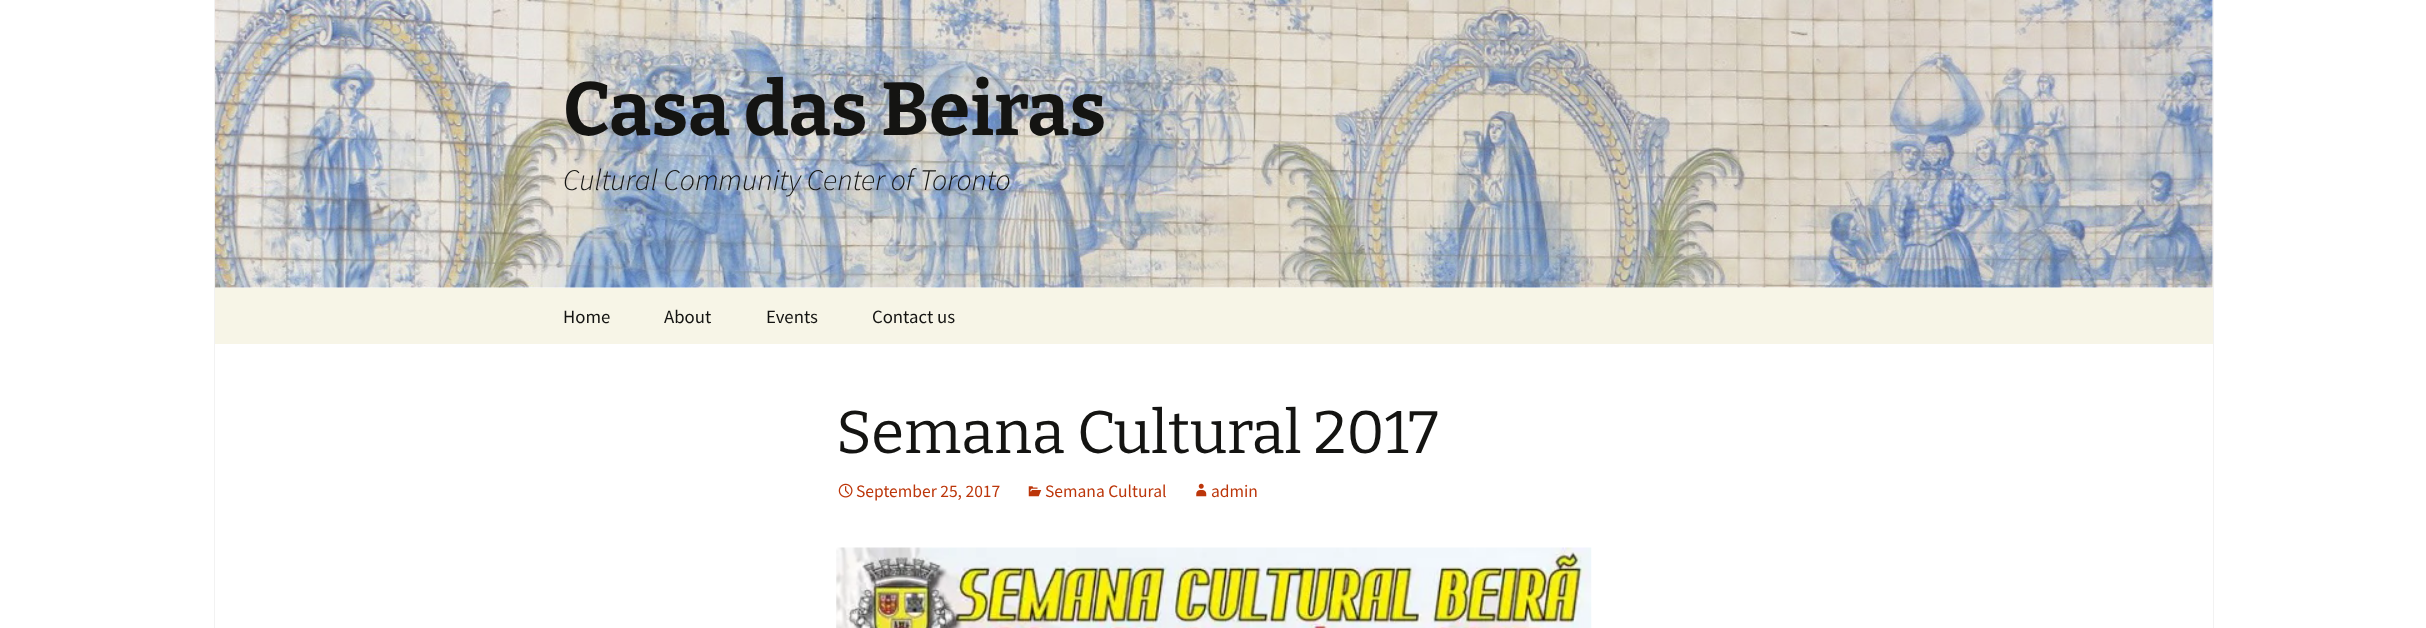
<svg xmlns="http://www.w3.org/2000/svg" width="2426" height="628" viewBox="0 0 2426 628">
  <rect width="100%" height="100%" fill="#ffffff"/>
  <rect x="2213" y="0" width="1" height="628" fill="#f2f2f2"/>
  <rect x="214" y="0" width="1" height="628" fill="#f2f2f2"/>
  <image x="215" y="0" width="1998" height="288" href="img1.png"/>
  <text x="563" y="135" font-family="Bitter" font-size="75" font-weight="100" fill="#141412">Casa das Beiras</text>
  <text x="563" y="190" font-family="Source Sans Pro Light" font-size="30" font-weight="300" font-style="italic" fill="#141412">Cultural Community Center of Toronto</text>
  <rect x="215" y="288" width="1998" height="56" fill="#f7f5e7"/>
  <text x="563" y="323" font-family="Source Sans Pro" font-size="18.75" fill="#141412">Home</text>
  <text x="664" y="323" font-family="Source Sans Pro" font-size="18.75" fill="#141412">About</text>
  <text x="766" y="323" font-family="Source Sans Pro" font-size="18.75" fill="#141412">Events</text>
  <text x="872" y="323" font-family="Source Sans Pro" font-size="18.75" fill="#141412">Contact us</text>
  <text x="836" y="453" font-family="'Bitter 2'" font-size="60" font-weight="100" fill="#141412">Semana Cultural 2017</text>
  <image x="838" y="483" width="15" height="15" href="img2.png"/>
  <text x="856" y="497" font-family="Source Sans Pro" font-size="17.5" fill="#bc360a">September 25, 2017</text>
  <image x="1028" y="486" width="14" height="11" href="img3.png"/>
  <text x="1045" y="497" font-family="Source Sans Pro" font-size="17.5" fill="#bc360a">Semana Cultural</text>
  <image x="1196" y="483" width="11" height="14" href="img4.png"/>
  <text x="1211" y="497" font-family="Source Sans Pro" font-size="17.5" fill="#bc360a">admin</text>
  <image x="836" y="547" width="756" height="81" href="img5.png"/>
</svg>
